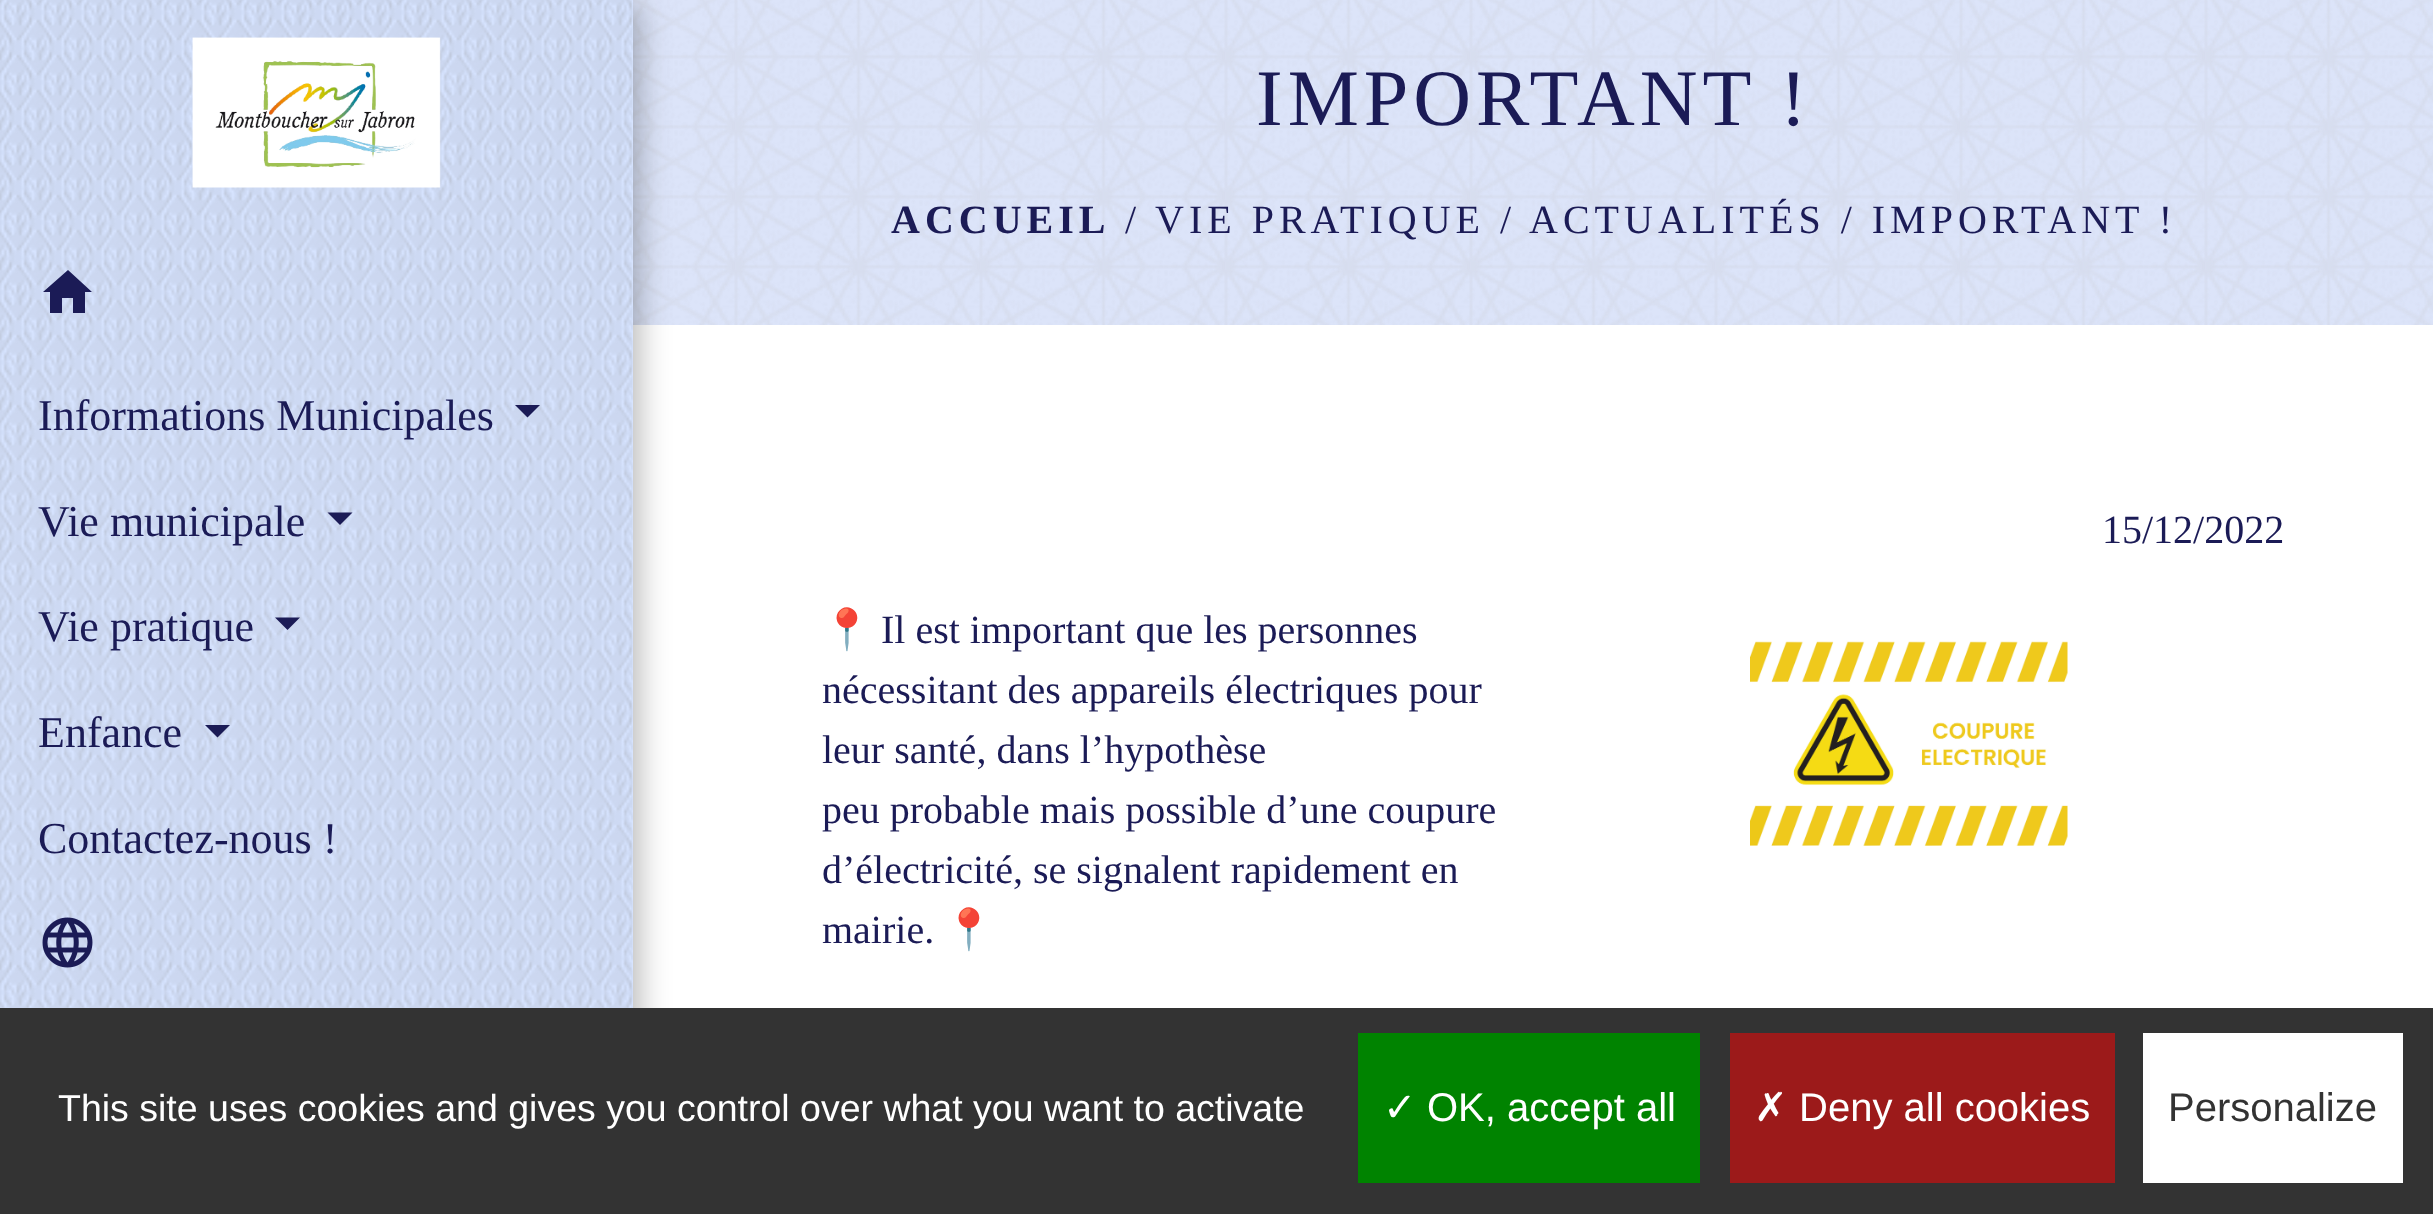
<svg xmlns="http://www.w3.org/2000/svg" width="2433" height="1214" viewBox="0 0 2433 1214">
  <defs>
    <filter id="blur1" x="-50%" y="-200%" width="200%" height="500%"><feGaussianBlur stdDeviation="16"/></filter>
  </defs>
  <rect width="100%" height="100%" fill="#ffffff"/>
  <rect x="633" y="0" width="1800" height="325" fill="#dce4f9"/>
  <image x="633" y="0" width="1800" height="325" href="img4.png"/>
  <rect x="5" y="5" width="633" height="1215" fill="#000000" fill-opacity="0.3" filter="url(#blur1)"/>
  <rect x="0" y="0" width="633" height="1008" fill="#d7e4ff"/>
  <image x="0" y="0" width="633" height="1008" href="img1.png"/>
  <image x="192" y="37" width="249" height="151" href="img2.png"/>
  <path d="M62 313H50V292H43L68 270L92 292H85V313H73V298H62Z" fill="#1b1b56"/>
  <text x="38" y="430" font-family="Liberation Serif" font-size="44" fill="#1b1b56">Informations Municipales</text>
  <path d="M515 405H540L527.5 417.5Z" fill="#1b1b56"/>
  <text x="38" y="536" font-family="Liberation Serif" font-size="44" fill="#1b1b56">Vie municipale</text>
  <path d="M327.5 512.5H352.5L340 525Z" fill="#1b1b56"/>
  <text x="38" y="641" font-family="Liberation Serif" font-size="44" fill="#1b1b56">Vie pratique</text>
  <path d="M275 617.5H300L287.5 630Z" fill="#1b1b56"/>
  <text x="38" y="747" font-family="Liberation Serif" font-size="44" fill="#1b1b56">Enfance</text>
  <path d="M205 725H230L217.5 737.5Z" fill="#1b1b56"/>
  <text x="38" y="853" font-family="Liberation Serif" font-size="44" fill="#1b1b56">Contactez-nous !</text>
  <image x="42" y="917" width="51" height="51" href="img3.png"/>
  <text x="1256" y="125" font-family="Liberation Serif" font-size="80" letter-spacing="5" fill="#1b1b56">IMPORTANT !</text>
  <text x="891" y="233" font-family="Liberation Serif" font-size="40" font-weight="bold" letter-spacing="5" fill="#1b1b56">ACCUEIL</text>
  <text x="1125" y="233" font-family="Liberation Serif" font-size="40" letter-spacing="5" fill="#1b1b56">/</text>
  <text x="1155" y="233" font-family="Liberation Serif" font-size="40" letter-spacing="5" fill="#1b1b56">VIE PRATIQUE /</text>
  <text x="1529" y="233" font-family="Liberation Serif" font-size="40" letter-spacing="5" fill="#1b1b56">ACTUALITÉS / IMPORTANT !</text>
  <text x="2102" y="543" font-family="Liberation Serif" font-size="40" fill="#1b1b56">15/12/2022</text>
  <text x="822" y="643" font-family="Noto Color Emoji" font-size="40" fill="#1b1b56">📍</text>
  <text x="881" y="643" font-family="Liberation Serif" font-size="40" fill="#1b1b56">Il est important que les personnes</text>
  <text x="822" y="703" font-family="Liberation Serif" font-size="40" fill="#1b1b56">nécessitant des appareils électriques pour</text>
  <text x="822" y="763" font-family="Liberation Serif" font-size="40" fill="#1b1b56">leur santé, dans l’hypothèse</text>
  <text x="822" y="823" font-family="Liberation Serif" font-size="40" fill="#1b1b56">peu probable mais possible d’une coupure</text>
  <text x="822" y="883" font-family="Liberation Serif" font-size="40" fill="#1b1b56">d’électricité, se signalent rapidement en</text>
  <text x="822" y="943" font-family="Liberation Serif" font-size="40" fill="#1b1b56">mairie. </text>
  <text x="944" y="943" font-family="Noto Color Emoji" font-size="40" fill="#1b1b56">📍</text>
  <image x="1750" y="641" width="318" height="205" href="img5.png"/>
  <rect x="0" y="1008" width="2433" height="206" fill="#333333"/>
  <text x="58" y="1121" font-family="Liberation Sans" font-size="37.5" fill="#ffffff">This site uses cookies and gives you control over what you want to activate</text>
  <rect x="1358" y="1033" width="342" height="150" fill="#008300"/>
  <text x="1383" y="1121" font-family="DejaVu Sans" font-size="40" fill="#ffffff">✓</text>
  <text x="1427" y="1121" font-family="Liberation Sans" font-size="40" fill="#ffffff">OK, accept all</text>
  <rect x="1730" y="1033" width="385" height="150" fill="#9c1a1a"/>
  <text x="1754" y="1121" font-family="DejaVu Sans" font-size="40" fill="#ffffff">✗</text>
  <text x="1799" y="1121" font-family="Liberation Sans" font-size="40" fill="#ffffff">Deny all cookies</text>
  <rect x="2143" y="1033" width="260" height="150" fill="#ffffff"/>
  <text x="2168" y="1121" font-family="Liberation Sans" font-size="40" fill="#333333">Personalize</text>
</svg>
